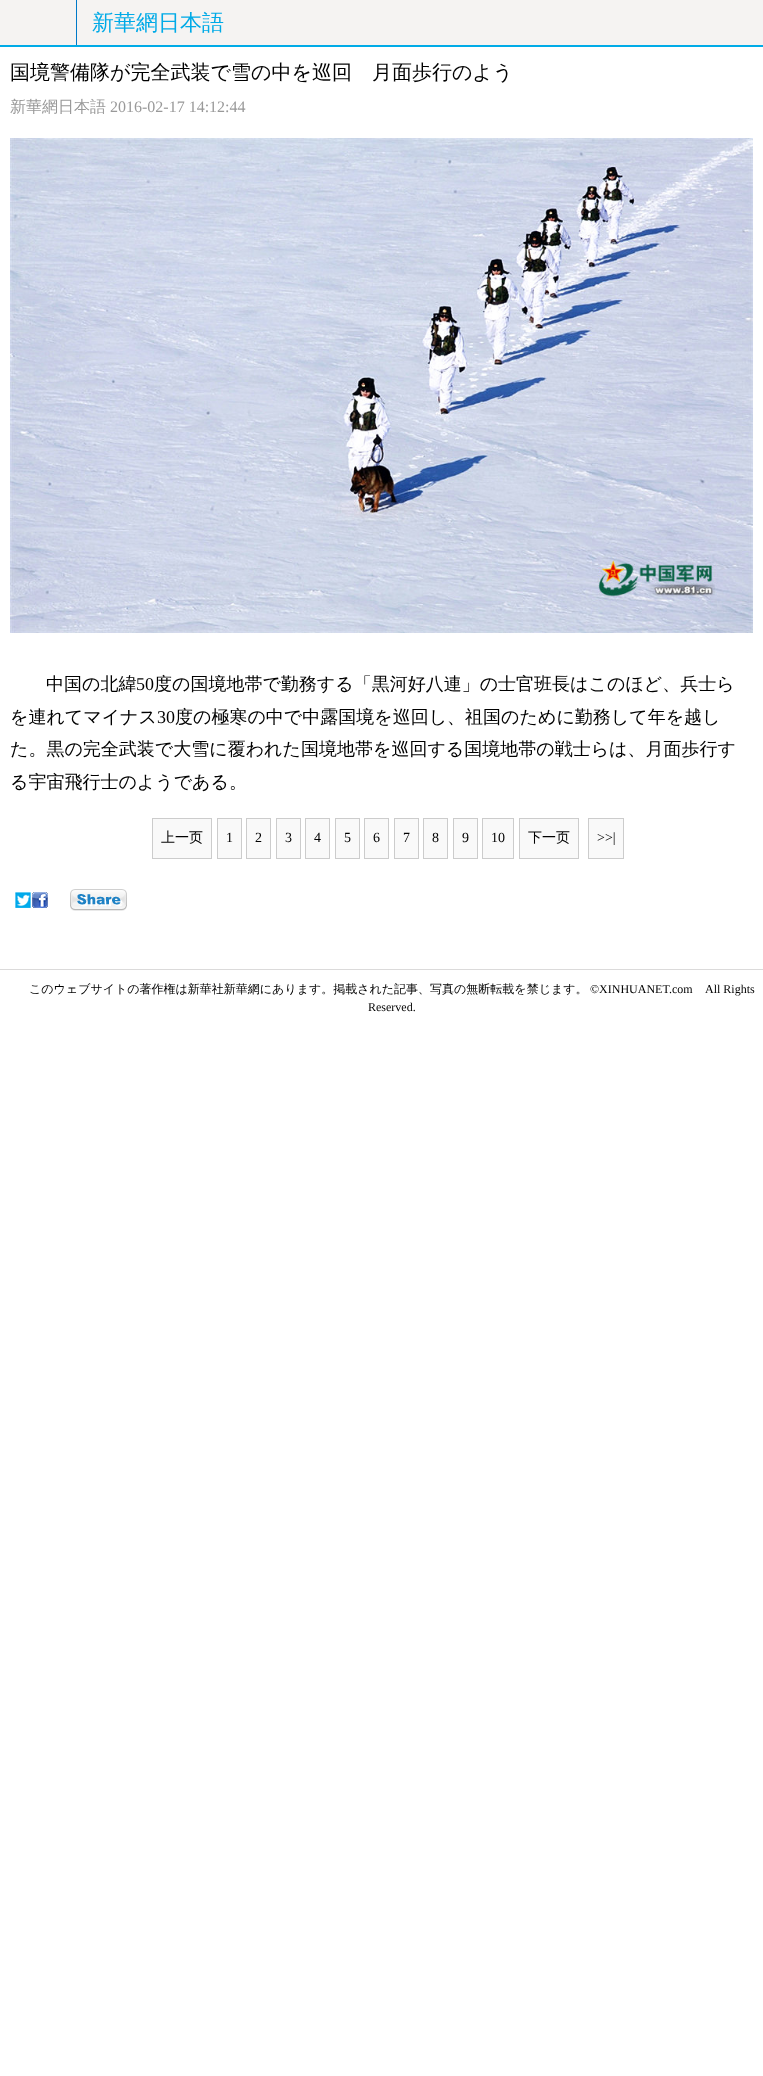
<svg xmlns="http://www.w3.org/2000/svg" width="763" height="2076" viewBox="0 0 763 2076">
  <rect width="100%" height="100%" fill="#ffffff"/>
  <rect x="0" y="0" width="763" height="45" fill="#f5f3f2"/>
  <rect x="0" y="45" width="763" height="2" fill="#00abe7"/>
  <rect x="76" y="0" width="1" height="45" fill="#0079c8"/>
  <text x="92" y="30" font-family="WenQuanYi Zen Hei" font-size="22" font-weight="500" fill="#00aae7">新華網日本語</text>
  <text x="10" y="79" font-family="WenQuanYi Zen Hei" font-size="20" font-weight="500" fill="#000000">国境警備隊が完全武装で雪の中を巡回　月面歩行のよう</text>
  <text x="10" y="112" font-family="WenQuanYi Zen Hei" font-size="16" font-weight="500" fill="#999999">新華網日本語</text>
  <text x="110" y="112" font-family="Liberation Serif" font-size="16" fill="#999999">2016-02-17 14:12:44</text>
  <image x="10" y="138" width="743" height="495" href="img1.png"/>
  <text x="46" y="690" font-family="WenQuanYi Zen Hei" font-size="18" font-weight="500" fill="#000000">中国の北緯</text>
  <text x="136" y="690" font-family="Liberation Serif" font-size="18" fill="#000000">50</text>
  <text x="154" y="690" font-family="WenQuanYi Zen Hei" font-size="18" font-weight="500" fill="#000000">度の国境地帯で勤務する「黒河好八連」の士官班長はこのほど、兵士ら</text>
  <text x="10" y="723" font-family="WenQuanYi Zen Hei" font-size="18" font-weight="500" fill="#000000">を連れてマイナス</text>
  <text x="157" y="723" font-family="Liberation Serif" font-size="18" fill="#000000">30</text>
  <text x="175" y="723" font-family="WenQuanYi Zen Hei" font-size="18" font-weight="500" fill="#000000">度の極寒の中で中露国境を巡回し、祖国のために勤務して年を越し</text>
  <text x="10" y="755" font-family="WenQuanYi Zen Hei" font-size="18" font-weight="500" fill="#000000">た。黒の完全武装で大雪に覆われた国境地帯を巡回する国境地帯の戦士らは、月面歩行す</text>
  <text x="10" y="788" font-family="WenQuanYi Zen Hei" font-size="18" font-weight="500" fill="#000000">る宇宙飛行士のようである。</text>
  <rect x="152.5" y="818.5" width="59" height="40" fill="#f9f9f9" stroke="#cccccc"/>
  <text x="161" y="842" font-family="WenQuanYi Zen Hei" font-size="14" font-weight="500" fill="#000000">上一页</text>
  <rect x="217.5" y="818.5" width="24" height="40" fill="#f9f9f9" stroke="#cccccc"/>
  <text x="226" y="842" font-family="Liberation Serif" font-size="14" fill="#000000">1</text>
  <rect x="246.5" y="818.5" width="24" height="40" fill="#f9f9f9" stroke="#cccccc"/>
  <text x="255" y="842" font-family="Liberation Serif" font-size="14" fill="#000000">2</text>
  <rect x="276.5" y="818.5" width="24" height="40" fill="#f9f9f9" stroke="#cccccc"/>
  <text x="285" y="842" font-family="Liberation Serif" font-size="14" fill="#000000">3</text>
  <rect x="305.5" y="818.5" width="24" height="40" fill="#f9f9f9" stroke="#cccccc"/>
  <text x="314" y="842" font-family="Liberation Serif" font-size="14" fill="#000000">4</text>
  <rect x="335.5" y="818.5" width="24" height="40" fill="#f9f9f9" stroke="#cccccc"/>
  <text x="344" y="842" font-family="Liberation Serif" font-size="14" fill="#000000">5</text>
  <rect x="364.5" y="818.5" width="24" height="40" fill="#f9f9f9" stroke="#cccccc"/>
  <text x="373" y="842" font-family="Liberation Serif" font-size="14" fill="#000000">6</text>
  <rect x="394.5" y="818.5" width="24" height="40" fill="#f9f9f9" stroke="#cccccc"/>
  <text x="403" y="842" font-family="Liberation Serif" font-size="14" fill="#000000">7</text>
  <rect x="423.5" y="818.5" width="24" height="40" fill="#f9f9f9" stroke="#cccccc"/>
  <text x="432" y="842" font-family="Liberation Serif" font-size="14" fill="#000000">8</text>
  <rect x="453.5" y="818.5" width="24" height="40" fill="#f9f9f9" stroke="#cccccc"/>
  <text x="462" y="842" font-family="Liberation Serif" font-size="14" fill="#000000">9</text>
  <rect x="482.5" y="818.5" width="31" height="40" fill="#f9f9f9" stroke="#cccccc"/>
  <text x="491" y="842" font-family="Liberation Serif" font-size="14" fill="#000000">10</text>
  <rect x="519.5" y="818.5" width="59" height="40" fill="#f9f9f9" stroke="#cccccc"/>
  <text x="528" y="842" font-family="WenQuanYi Zen Hei" font-size="14" font-weight="500" fill="#000000">下一页</text>
  <rect x="588.5" y="818.5" width="35" height="40" fill="#f9f9f9" stroke="#cccccc"/>
  <text x="597" y="842" font-family="Liberation Serif" font-size="14" fill="#000000">&gt;&gt;|</text>
  <image x="15" y="892" width="16" height="16" href="img2.png"/>
  <image x="32" y="892" width="16" height="16" href="img3.png"/>
  <image x="70" y="889" width="57" height="22" href="img4.png"/>
  <rect x="0" y="969" width="763" height="1" fill="#dbdada"/>
  <text x="29" y="993" font-family="WenQuanYi Zen Hei" font-size="12" font-weight="500" fill="#000000">このウェブサイトの著作権は新華社新華網にあります。掲載された記事、写真の無断転載を禁じます。</text>
  <text x="590" y="993" font-family="Liberation Serif" font-size="12" fill="#000000">©XINHUANET.com</text>
  <text x="705" y="993" font-family="Liberation Serif" font-size="12" fill="#000000">All Rights</text>
  <text x="368" y="1011" font-family="Liberation Serif" font-size="12" fill="#000000">Reserved.</text>
</svg>
